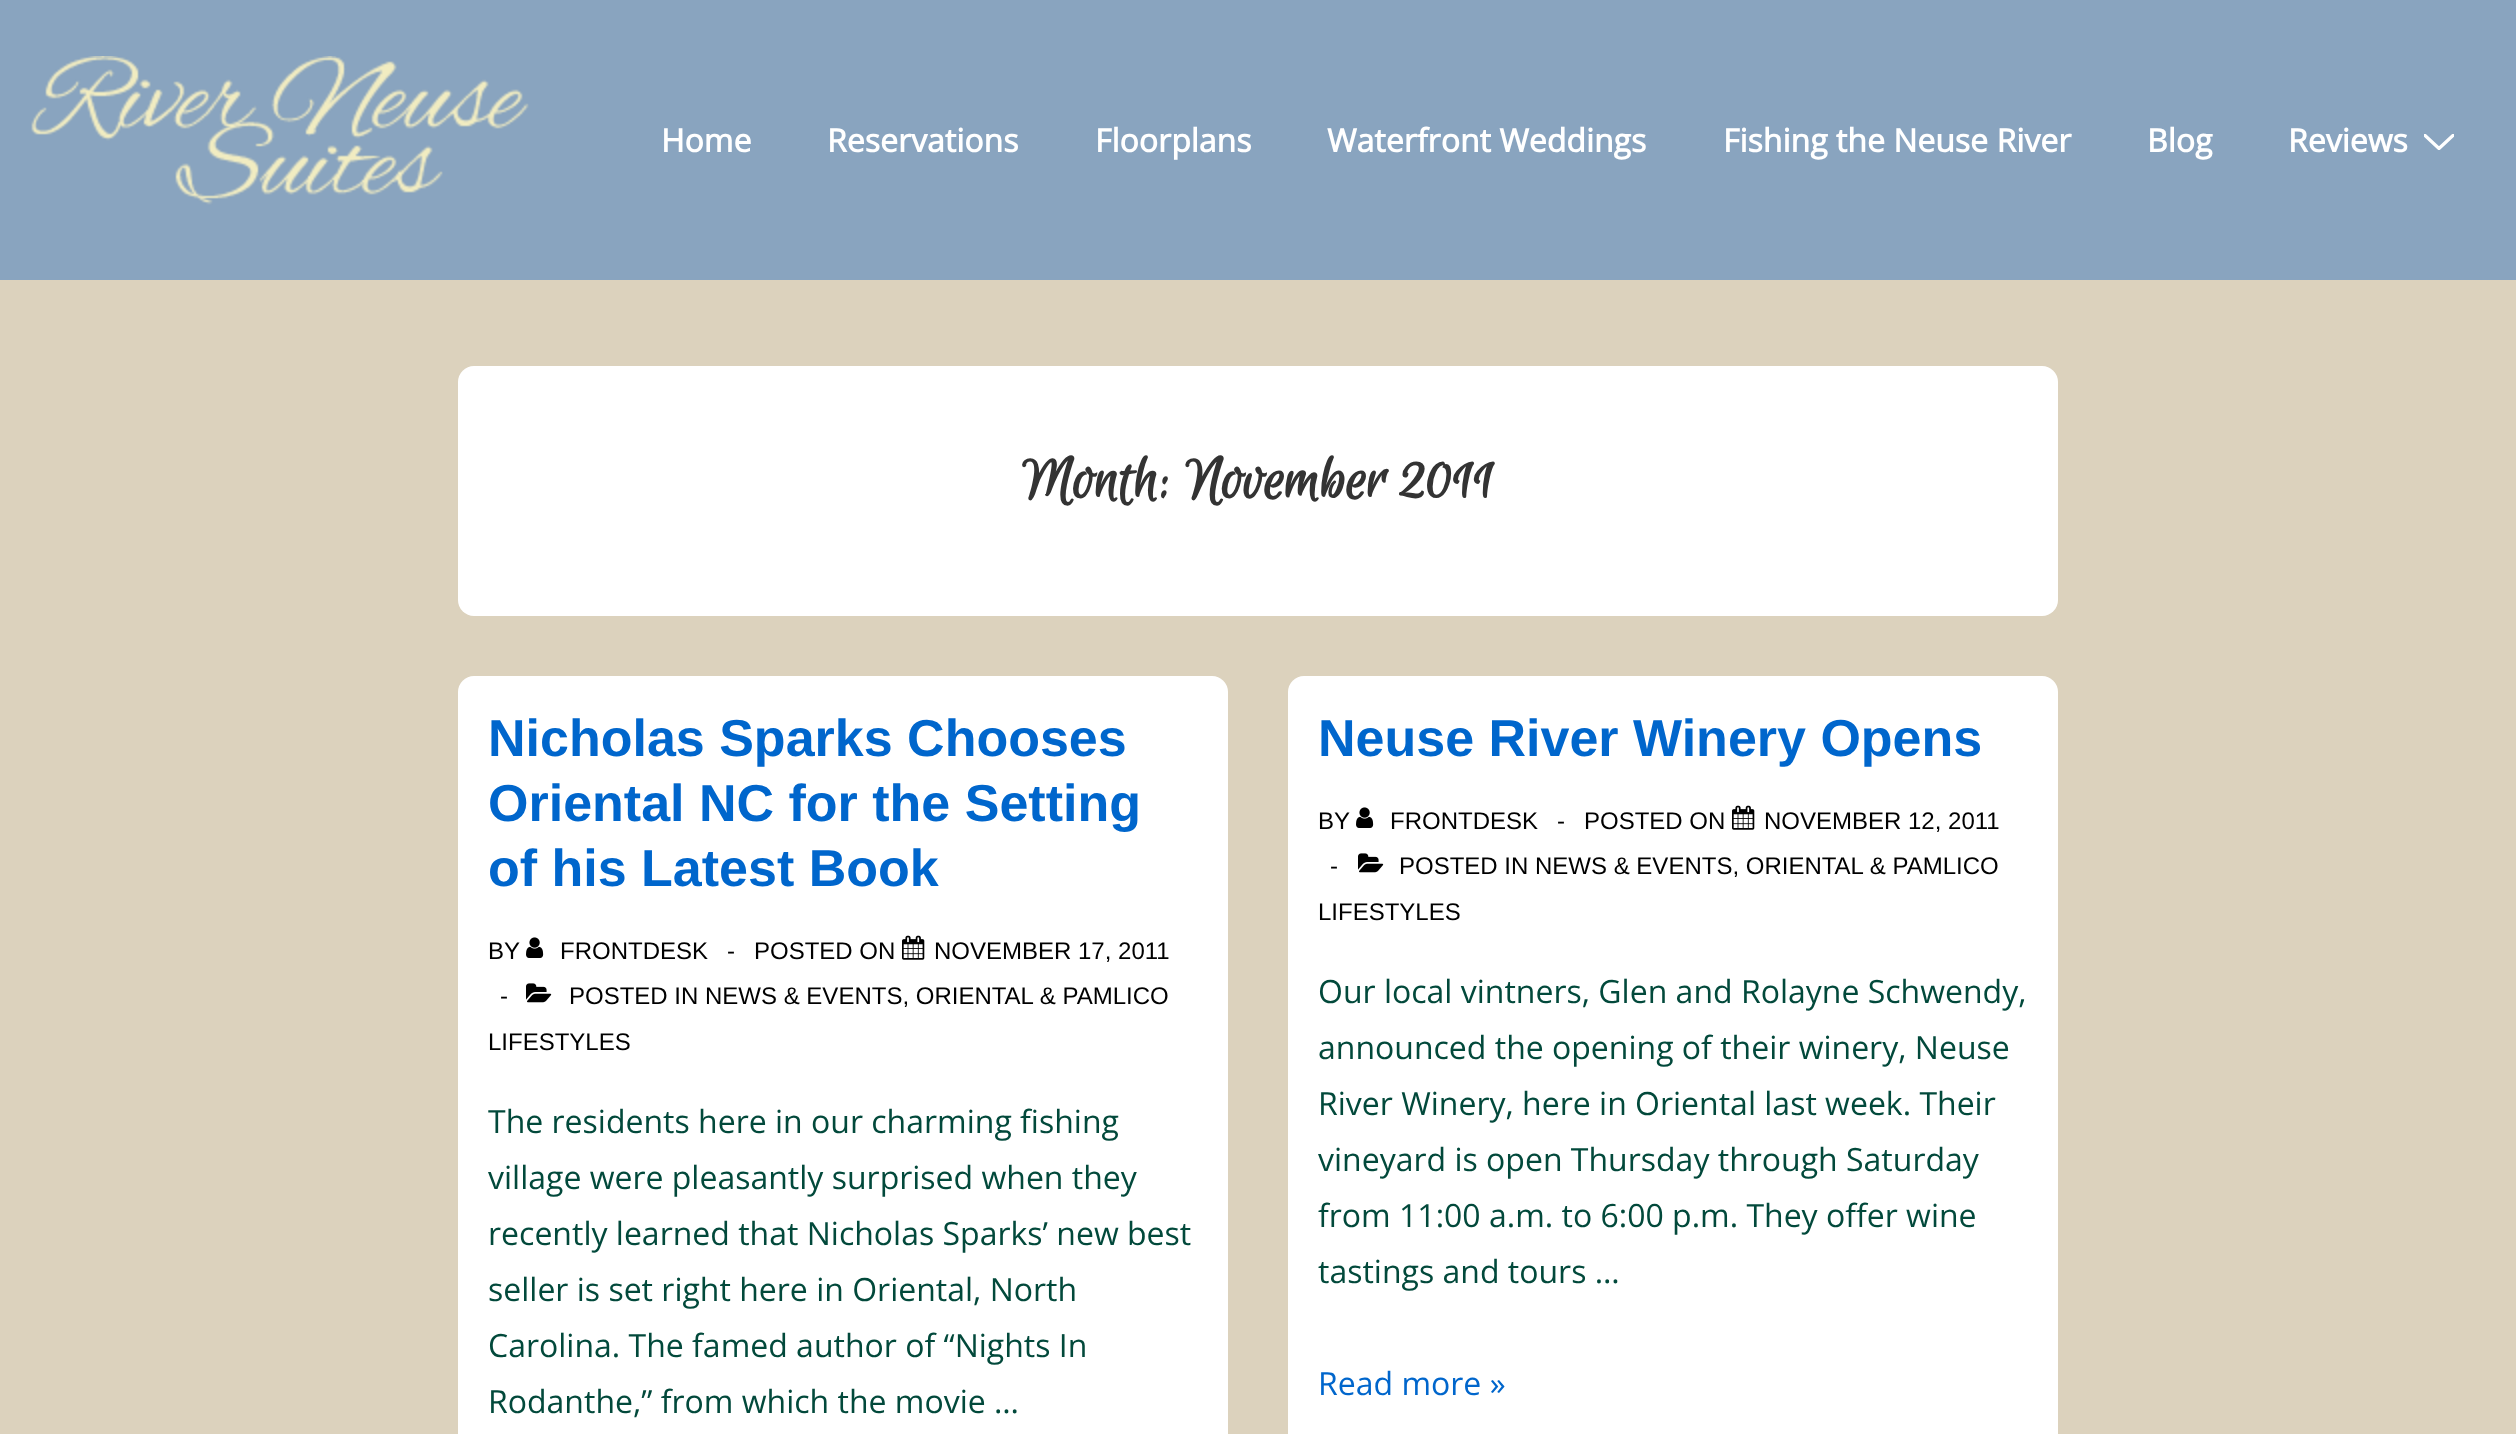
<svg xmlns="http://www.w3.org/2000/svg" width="2516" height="1434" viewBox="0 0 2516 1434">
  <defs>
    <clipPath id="clip1"><rect x="2424" y="134" width="30" height="16"/></clipPath>
  </defs>
  <rect width="100%" height="100%" fill="#89a4bf"/>
  <image x="31" y="56" width="498" height="149" href="img1.png"/>
  <text x="661" y="152" font-family="Open Sans" font-size="32" font-weight="bold" fill="#ffffff">Home</text>
  <text x="827" y="152" font-family="Open Sans" font-size="32" font-weight="bold" fill="#ffffff">Reservations</text>
  <text x="1095" y="152" font-family="Open Sans" font-size="32" font-weight="bold" fill="#ffffff">Floorplans</text>
  <text x="1327" y="152" font-family="Open Sans" font-size="32" font-weight="bold" fill="#ffffff">Waterfront Weddings</text>
  <text x="1723" y="152" font-family="Open Sans" font-size="32" font-weight="bold" fill="#ffffff">Fishing the Neuse River</text>
  <text x="2147" y="152" font-family="Open Sans" font-size="32" font-weight="bold" fill="#ffffff">Blog</text>
  <text x="2288" y="152" font-family="Open Sans" font-size="32" font-weight="bold" fill="#ffffff">Reviews</text>
  <g clip-path="url(#clip1)">
    <path d="M2425 135.5L2439 148.5L2453 135.5" fill="none" stroke="#ffffff" stroke-width="3.3" stroke-linecap="round"/>
  </g>
  <rect x="0" y="280" width="2516" height="1154" fill="#dcd2bd"/>
  <rect x="458" y="366" width="1600" height="250" rx="16" fill="#ffffff"/>
  <text x="1022" y="498" font-family="Euphoria Script" font-size="66" font-weight="bold" fill="#333333">Month: November 2011</text>
  <rect x="458" y="676" width="770" height="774" rx="16" fill="#ffffff"/>
  <text x="488" y="756" font-family="Liberation Sans" font-size="52" font-weight="bold" fill="#0066cc">Nicholas Sparks Chooses</text>
  <text x="488" y="821" font-family="Liberation Sans" font-size="52" font-weight="bold" fill="#0066cc">Oriental NC for the Setting</text>
  <text x="488" y="886" font-family="Liberation Sans" font-size="52" font-weight="bold" fill="#0066cc">of his Latest Book</text>
  <text x="488" y="959" font-family="Liberation Sans" font-size="24" fill="#000000">BY</text>
  <image x="526" y="937" width="18" height="21" href="img2.png"/>
  <text x="560" y="959" font-family="Liberation Sans" font-size="24" fill="#000000">FRONTDESK</text>
  <text x="727" y="959" font-family="Liberation Sans" font-size="24" fill="#000000">-</text>
  <text x="754" y="959" font-family="Liberation Sans" font-size="24" fill="#000000">POSTED ON</text>
  <image x="902" y="935" width="23" height="25" href="img3.png"/>
  <text x="934" y="959" font-family="Liberation Sans" font-size="24" fill="#000000">NOVEMBER 17, 2011</text>
  <text x="500" y="1004" font-family="Liberation Sans" font-size="24" fill="#000000">-</text>
  <image x="526" y="983" width="26" height="20" href="img4.png"/>
  <text x="569" y="1004" font-family="Liberation Sans" font-size="24" fill="#000000">POSTED IN NEWS &amp; EVENTS, ORIENTAL &amp; PAMLICO</text>
  <text x="488" y="1050" font-family="Liberation Sans" font-size="24" fill="#000000">LIFESTYLES</text>
  <text x="488" y="1133" font-family="Open Sans" font-size="32" fill="#02493b">The residents here in our charming fishing</text>
  <text x="488" y="1189" font-family="Open Sans" font-size="32" fill="#02493b">village were pleasantly surprised when they</text>
  <text x="488" y="1245" font-family="Open Sans" font-size="32" fill="#02493b">recently learned that Nicholas Sparks’ new best</text>
  <text x="488" y="1301" font-family="Open Sans" font-size="32" fill="#02493b">seller is set right here in Oriental, North</text>
  <text x="488" y="1357" font-family="Open Sans" font-size="32" fill="#02493b">Carolina. The famed author of “Nights In</text>
  <text x="488" y="1413" font-family="Open Sans" font-size="32" fill="#02493b">Rodanthe,” from which the movie …</text>
  <rect x="1288" y="676" width="770" height="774" rx="16" fill="#ffffff"/>
  <text x="1318" y="756" font-family="Liberation Sans" font-size="52" font-weight="bold" fill="#0066cc">Neuse River Winery Opens</text>
  <text x="1318" y="829" font-family="Liberation Sans" font-size="24" fill="#000000">BY</text>
  <image x="1356" y="807" width="18" height="21" href="img2.png"/>
  <text x="1390" y="829" font-family="Liberation Sans" font-size="24" fill="#000000">FRONTDESK</text>
  <text x="1557" y="829" font-family="Liberation Sans" font-size="24" fill="#000000">-</text>
  <text x="1584" y="829" font-family="Liberation Sans" font-size="24" fill="#000000">POSTED ON</text>
  <image x="1732" y="805" width="23" height="25" href="img3.png"/>
  <text x="1764" y="829" font-family="Liberation Sans" font-size="24" fill="#000000">NOVEMBER 12, 2011</text>
  <text x="1330" y="874" font-family="Liberation Sans" font-size="24" fill="#000000">-</text>
  <image x="1358" y="853" width="26" height="20" href="img4.png"/>
  <text x="1399" y="874" font-family="Liberation Sans" font-size="24" fill="#000000">POSTED IN NEWS &amp; EVENTS, ORIENTAL &amp; PAMLICO</text>
  <text x="1318" y="920" font-family="Liberation Sans" font-size="24" fill="#000000">LIFESTYLES</text>
  <text x="1318" y="1003" font-family="Open Sans" font-size="32" fill="#02493b">Our local vintners, Glen and Rolayne Schwendy,</text>
  <text x="1318" y="1059" font-family="Open Sans" font-size="32" fill="#02493b">announced the opening of their winery, Neuse</text>
  <text x="1318" y="1115" font-family="Open Sans" font-size="32" fill="#02493b">River Winery, here in Oriental last week. Their</text>
  <text x="1318" y="1171" font-family="Open Sans" font-size="32" fill="#02493b">vineyard is open Thursday through Saturday</text>
  <text x="1318" y="1227" font-family="Open Sans" font-size="32" fill="#02493b">from 11:00 a.m. to 6:00 p.m. They offer wine</text>
  <text x="1318" y="1283" font-family="Open Sans" font-size="32" fill="#02493b">tastings and tours …</text>
  <text x="1318" y="1395" font-family="Open Sans" font-size="32" fill="#0066cc">Read more »</text>
</svg>
